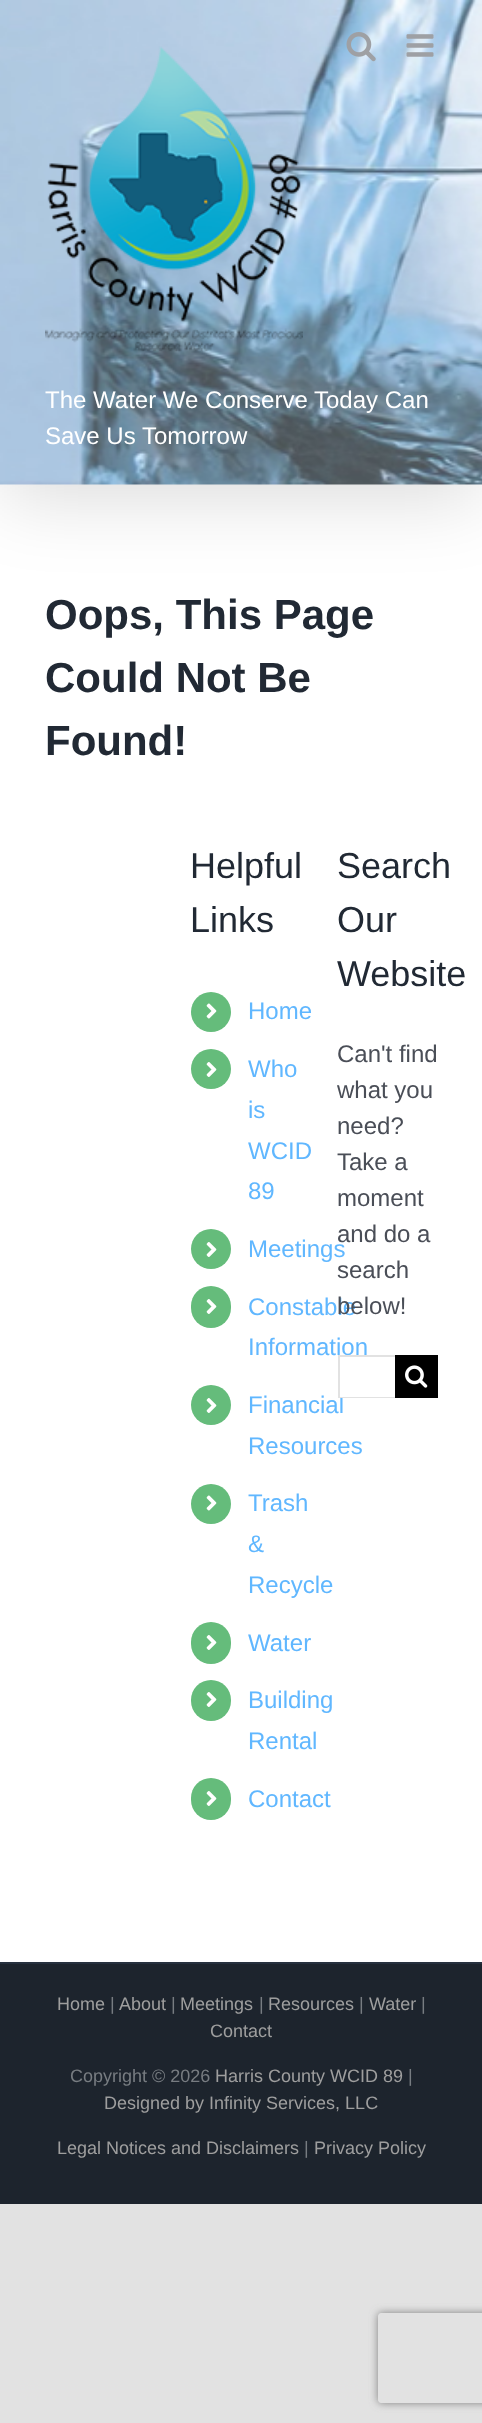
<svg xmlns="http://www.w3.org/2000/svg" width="482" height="2423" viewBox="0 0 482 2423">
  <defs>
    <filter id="blur1" x="-50%" y="-200%" width="200%" height="500%"><feGaussianBlur stdDeviation="37.5"/></filter>
    <clipPath id="clip1"><path d="M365 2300H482V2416H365ZM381 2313H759C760.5 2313 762 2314.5 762 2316V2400C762 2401.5 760.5 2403 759 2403H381C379.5 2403 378 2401.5 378 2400V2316C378 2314.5 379.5 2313 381 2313Z" clip-rule="evenodd"/></clipPath>
    <filter id="blur2" x="-50%" y="-200%" width="200%" height="500%"><feGaussianBlur stdDeviation="4"/></filter>
  </defs>
  <rect width="100%" height="100%" fill="#e2e2e2"/>
  <rect x="0" y="484" width="482" height="1478" fill="#ffffff"/>
  <rect x="3" y="18" width="477" height="480" fill="#000000" fill-opacity="0.14" filter="url(#blur1)"/>
  <image x="0" y="0" width="482" height="485" href="img1.png"/>
  <image x="346" y="32" width="30" height="30" href="img2.png"/>
  <image x="406" y="34" width="28" height="23" href="img3.png"/>
  <image x="45" y="46" width="258" height="306" href="img4.png"/>
  <text x="45" y="408" font-family="Liberation Sans" font-size="24" fill="#ffffff">The Water We Conserve Today Can</text>
  <text x="45" y="444" font-family="Liberation Sans" font-size="24" fill="#ffffff">Save Us Tomorrow</text>
  <text x="45" y="629" font-family="Liberation Sans" font-size="42" font-weight="bold" fill="#212934">Oops, This Page</text>
  <text x="45" y="692" font-family="Liberation Sans" font-size="42" font-weight="bold" fill="#212934">Could Not Be</text>
  <text x="45" y="755" font-family="Liberation Sans" font-size="42" font-weight="bold" fill="#212934">Found!</text>
  <text x="190" y="878" font-family="Liberation Sans" font-size="36" fill="#212934">Helpful</text>
  <text x="190" y="932" font-family="Liberation Sans" font-size="36" fill="#212934">Links</text>
  <circle cx="211" cy="1012" r="20" fill="#65bc7b"/>
  <image x="206" y="1003" width="11" height="16" href="img5.png"/>
  <text x="248" y="1019" font-family="Liberation Sans" font-size="24" fill="#60b7ff">Home</text>
  <circle cx="211" cy="1069" r="20" fill="#65bc7b"/>
  <image x="206" y="1062" width="11" height="15" href="img6.png"/>
  <text x="248" y="1077" font-family="Liberation Sans" font-size="24" fill="#60b7ff">Who</text>
  <text x="248" y="1118" font-family="Liberation Sans" font-size="24" fill="#60b7ff">is</text>
  <text x="248" y="1159" font-family="Liberation Sans" font-size="24" fill="#60b7ff">WCID</text>
  <text x="248" y="1199" font-family="Liberation Sans" font-size="24" fill="#60b7ff">89</text>
  <circle cx="211" cy="1249" r="20" fill="#65bc7b"/>
  <image x="206" y="1242" width="11" height="15" href="img6.png"/>
  <text x="248" y="1257" font-family="Liberation Sans" font-size="24" fill="#60b7ff">Meetings</text>
  <rect x="191" y="1286" width="40" height="42" rx="20" fill="#65bc7b"/>
  <image x="206" y="1299" width="11" height="15" href="img6.png"/>
  <text x="248" y="1315" font-family="Liberation Sans" font-size="24" fill="#60b7ff">Constable</text>
  <text x="248" y="1355" font-family="Liberation Sans" font-size="24" fill="#60b7ff">Information</text>
  <circle cx="211" cy="1405" r="20" fill="#65bc7b"/>
  <image x="206" y="1398" width="11" height="15" href="img6.png"/>
  <text x="248" y="1413" font-family="Liberation Sans" font-size="24" fill="#60b7ff">Financial</text>
  <text x="248" y="1454" font-family="Liberation Sans" font-size="24" fill="#60b7ff">Resources</text>
  <circle cx="211" cy="1504" r="20" fill="#65bc7b"/>
  <image x="206" y="1495" width="11" height="16" href="img5.png"/>
  <text x="248" y="1511" font-family="Liberation Sans" font-size="24" fill="#60b7ff">Trash</text>
  <text x="248" y="1552" font-family="Liberation Sans" font-size="24" fill="#60b7ff">&amp;</text>
  <text x="248" y="1593" font-family="Liberation Sans" font-size="24" fill="#60b7ff">Recycle</text>
  <rect x="191" y="1622" width="40" height="42" rx="20" fill="#65bc7b"/>
  <image x="206" y="1635" width="11" height="15" href="img6.png"/>
  <text x="248" y="1651" font-family="Liberation Sans" font-size="24" fill="#60b7ff">Water</text>
  <rect x="191" y="1680" width="40" height="41" rx="20" fill="#65bc7b"/>
  <image x="206" y="1692" width="11" height="15" href="img6.png"/>
  <text x="248" y="1708" font-family="Liberation Sans" font-size="24" fill="#60b7ff">Building</text>
  <text x="248" y="1749" font-family="Liberation Sans" font-size="24" fill="#60b7ff">Rental</text>
  <rect x="191" y="1778" width="40" height="42" rx="20" fill="#65bc7b"/>
  <image x="206" y="1791" width="11" height="15" href="img6.png"/>
  <text x="248" y="1807" font-family="Liberation Sans" font-size="24" fill="#60b7ff">Contact</text>
  <text x="337" y="878" font-family="Liberation Sans" font-size="36" fill="#212934">Search</text>
  <text x="337" y="932" font-family="Liberation Sans" font-size="36" fill="#212934">Our</text>
  <text x="337" y="986" font-family="Liberation Sans" font-size="36" fill="#212934">Website</text>
  <text x="337" y="1062" font-family="Liberation Sans" font-size="24" fill="#4a4e57">Can't find</text>
  <text x="337" y="1098" font-family="Liberation Sans" font-size="24" fill="#4a4e57">what you</text>
  <text x="337" y="1134" font-family="Liberation Sans" font-size="24" fill="#4a4e57">need?</text>
  <text x="337" y="1170" font-family="Liberation Sans" font-size="24" fill="#4a4e57">Take a</text>
  <text x="337" y="1206" font-family="Liberation Sans" font-size="24" fill="#4a4e57">moment</text>
  <text x="337" y="1242" font-family="Liberation Sans" font-size="24" fill="#4a4e57">and do a</text>
  <text x="337" y="1278" font-family="Liberation Sans" font-size="24" fill="#4a4e57">search</text>
  <text x="337" y="1314" font-family="Liberation Sans" font-size="24" fill="#4a4e57">below!</text>
  <rect x="340" y="1395" width="3" height="2" fill="#ffffff"/>
  <rect x="338" y="1355" width="57" height="2" fill="#e2e2e2"/>
  <rect x="338" y="1397" width="57" height="1" fill="#e2e2e2"/>
  <rect x="338" y="1355" width="2" height="43" fill="#e2e2e2"/>
  <rect x="395" y="1355" width="43" height="43" fill="#000000"/>
  <image x="405" y="1365" width="23" height="23" href="img7.png"/>
  <rect x="0" y="1964" width="482" height="240" fill="#1d242d"/>
  <rect x="0" y="1962" width="482" height="2" fill="#26303e"/>
  <text x="57" y="2010" font-family="Liberation Sans" font-size="18" fill="#9e9e9e">Home</text>
  <text x="110" y="2010" font-family="Liberation Sans" font-size="18" fill="#777c81">|</text>
  <text x="119" y="2010" font-family="Liberation Sans" font-size="18" fill="#9e9e9e">About</text>
  <text x="171" y="2010" font-family="Liberation Sans" font-size="18" fill="#777c81">|</text>
  <text x="180" y="2010" font-family="Liberation Sans" font-size="18" fill="#9e9e9e">Meetings</text>
  <text x="259" y="2010" font-family="Liberation Sans" font-size="18" fill="#777c81">|</text>
  <text x="268" y="2010" font-family="Liberation Sans" font-size="18" fill="#9e9e9e">Resources</text>
  <text x="359" y="2010" font-family="Liberation Sans" font-size="18" fill="#777c81">|</text>
  <text x="369" y="2010" font-family="Liberation Sans" font-size="18" fill="#9e9e9e">Water</text>
  <text x="421" y="2010" font-family="Liberation Sans" font-size="18" fill="#777c81">|</text>
  <text x="210" y="2037" font-family="Liberation Sans" font-size="18" fill="#9e9e9e">Contact</text>
  <text x="70" y="2082" font-family="Liberation Sans" font-size="18" fill="#777c81">Copyright © 2026</text>
  <text x="215" y="2082" font-family="Liberation Sans" font-size="18" fill="#9e9e9e">Harris County WCID 89</text>
  <text x="408" y="2082" font-family="Liberation Sans" font-size="18" fill="#777c81">|</text>
  <text x="104" y="2109" font-family="Liberation Sans" font-size="18" fill="#9e9e9e">Designed by Infinity Services, LLC</text>
  <text x="57" y="2154" font-family="Liberation Sans" font-size="18" fill="#9e9e9e">Legal Notices and Disclaimers</text>
  <text x="304" y="2154" font-family="Liberation Sans" font-size="18" fill="#777c81">|</text>
  <text x="314" y="2154" font-family="Liberation Sans" font-size="18" fill="#9e9e9e">Privacy Policy</text>
  <g clip-path="url(#clip1)">
    <rect x="378" y="2313" width="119" height="90" rx="3" fill="#808080" filter="url(#blur2)"/>
  </g>
</svg>
